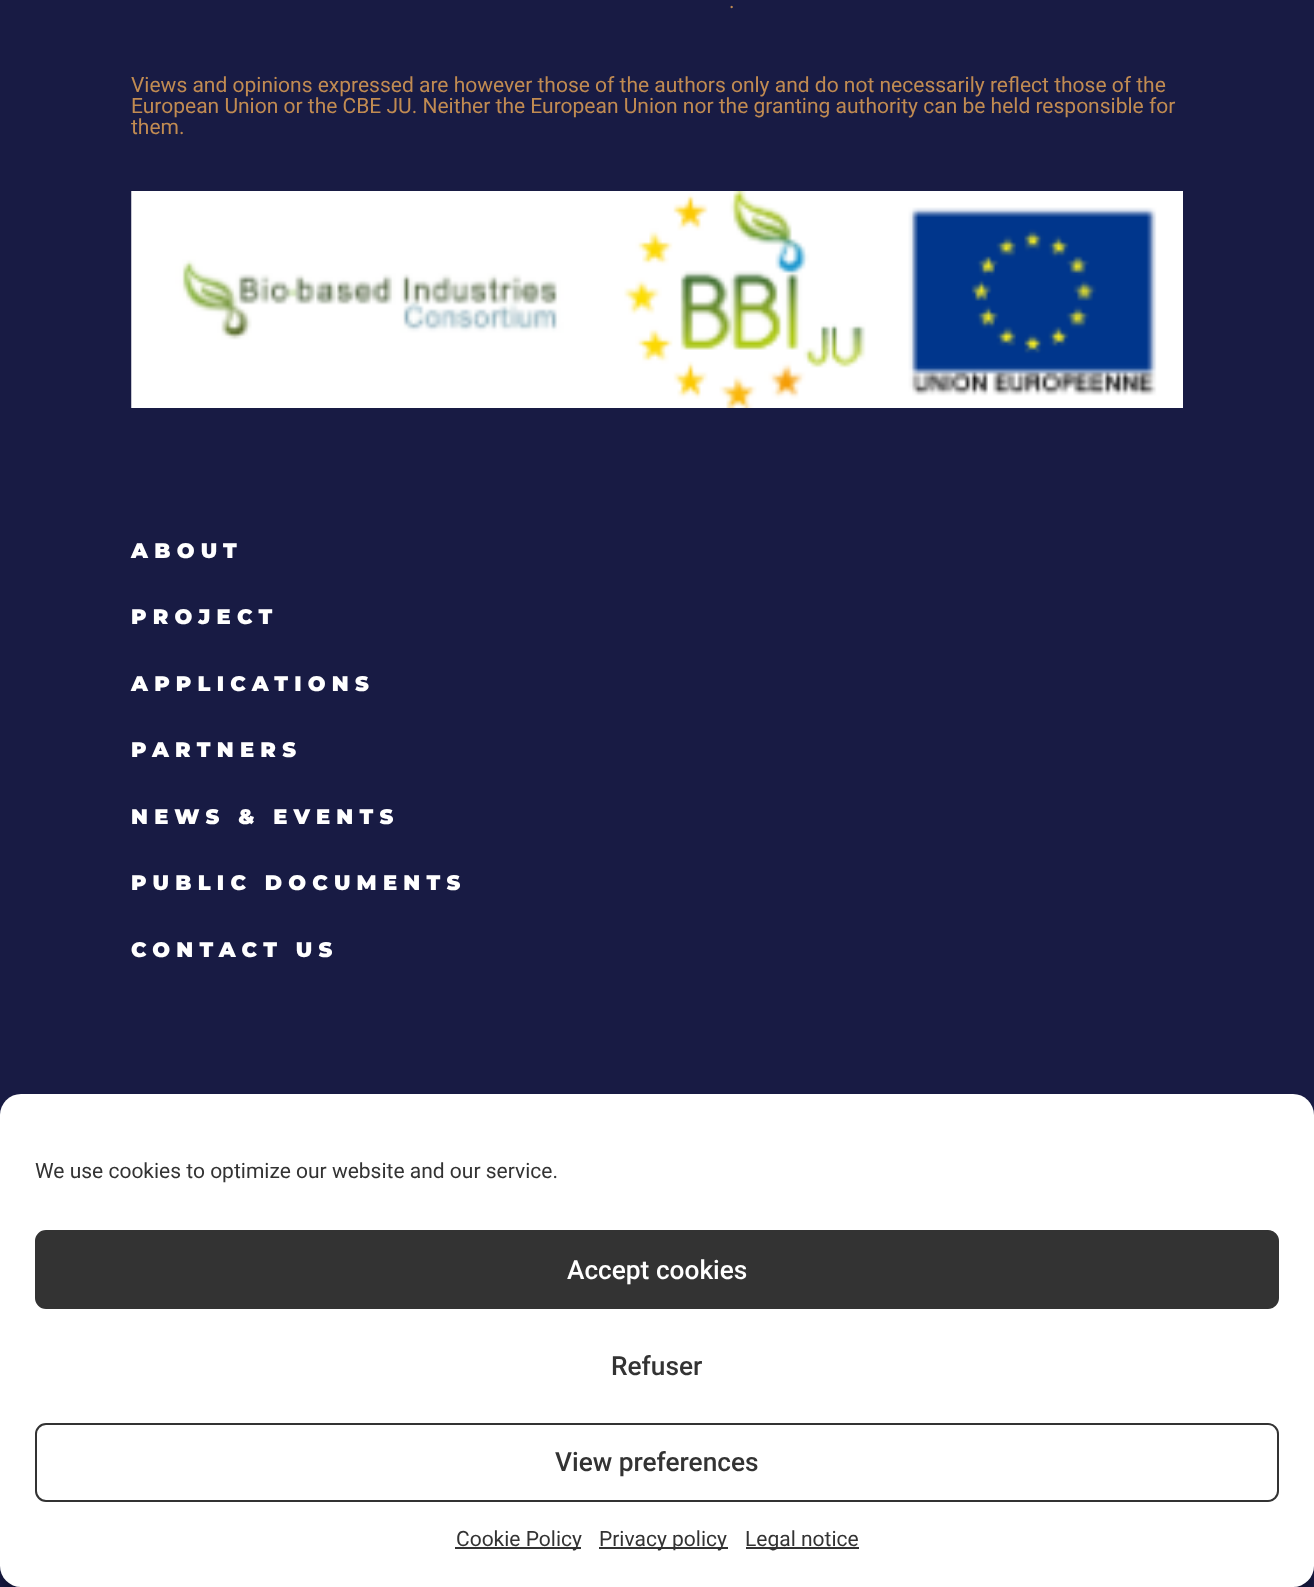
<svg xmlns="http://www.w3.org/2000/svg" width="1314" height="1587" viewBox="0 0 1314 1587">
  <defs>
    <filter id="blur1" x="-50%" y="-200%" width="200%" height="500%"><feGaussianBlur stdDeviation="5"/></filter>
  </defs>
  <rect width="100%" height="100%" fill="#181b44"/>
  <text x="729" y="8" font-family="Roboto" font-size="21" fill="#c18b52">.</text>
  <text x="131" y="92" font-family="Roboto" font-size="21" fill="#c18b52">Views and opinions expressed are however those of the authors only and do not necessarily reflect those of the</text>
  <text x="131" y="113" font-family="Roboto" font-size="21" fill="#c18b52">European Union or the CBE JU. Neither the European Union nor the granting authority can be held responsible for</text>
  <text x="131" y="134" font-family="Roboto" font-size="21" fill="#c18b52">them.</text>
  <image x="131" y="191" width="1052" height="217" href="img1.png"/>
  <text x="131" y="558" font-family="Montserrat" font-size="21" font-weight="100" letter-spacing="6.25" fill="#ffffff">ABOUT</text>
  <text x="131" y="624" font-family="Montserrat" font-size="21" font-weight="100" letter-spacing="6.25" fill="#ffffff">PROJECT</text>
  <text x="131" y="691" font-family="Montserrat" font-size="21" font-weight="100" letter-spacing="6.25" fill="#ffffff">APPLICATIONS</text>
  <text x="131" y="757" font-family="Montserrat" font-size="21" font-weight="100" letter-spacing="6.25" fill="#ffffff">PARTNERS</text>
  <text x="131" y="824" font-family="Montserrat" font-size="21" font-weight="100" letter-spacing="6.25" fill="#ffffff">NEWS &amp; EVENTS</text>
  <text x="131" y="890" font-family="Montserrat" font-size="21" font-weight="100" letter-spacing="6.25" fill="#ffffff">PUBLIC DOCUMENTS</text>
  <text x="131" y="957" font-family="Montserrat" font-size="21" font-weight="100" letter-spacing="6.25" fill="#ffffff">CONTACT US</text>
  <rect x="0" y="1104" width="1314" height="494" rx="21" fill="#000000" fill-opacity="0.23" filter="url(#blur1)"/>
  <rect x="0" y="1094" width="1314" height="493" rx="21" fill="#ffffff"/>
  <text x="35" y="1178" font-family="Roboto" font-size="21" fill="#333333">We use cookies to optimize our website and our service.</text>
  <rect x="36" y="1231" width="1242" height="77" rx="10" fill="#333333" stroke="#333333" stroke-width="2"/>
  <text x="567" y="1279" font-family="Roboto" font-size="26.25" font-weight="500" fill="#ffffff">Accept cookies</text>
  <text x="611" y="1375" font-family="Roboto" font-size="26.25" font-weight="500" fill="#333333">Refuser</text>
  <rect x="36" y="1424" width="1242" height="77" rx="10" fill="none" stroke="#333333" stroke-width="2"/>
  <text x="555" y="1471" font-family="Roboto" font-size="26.25" font-weight="500" fill="#333333">View preferences</text>
  <rect x="455" y="1547" width="126" height="2" fill="#333333"/>
  <text x="456" y="1546" font-family="Roboto" font-size="21" fill="#333333">Cookie Policy</text>
  <rect x="599" y="1547" width="129" height="2" fill="#333333"/>
  <text x="599" y="1546" font-family="Roboto" font-size="21" fill="#333333">Privacy policy</text>
  <rect x="746" y="1547" width="113" height="2" fill="#333333"/>
  <text x="745" y="1546" font-family="Roboto" font-size="21" fill="#333333">Legal notice</text>
</svg>
